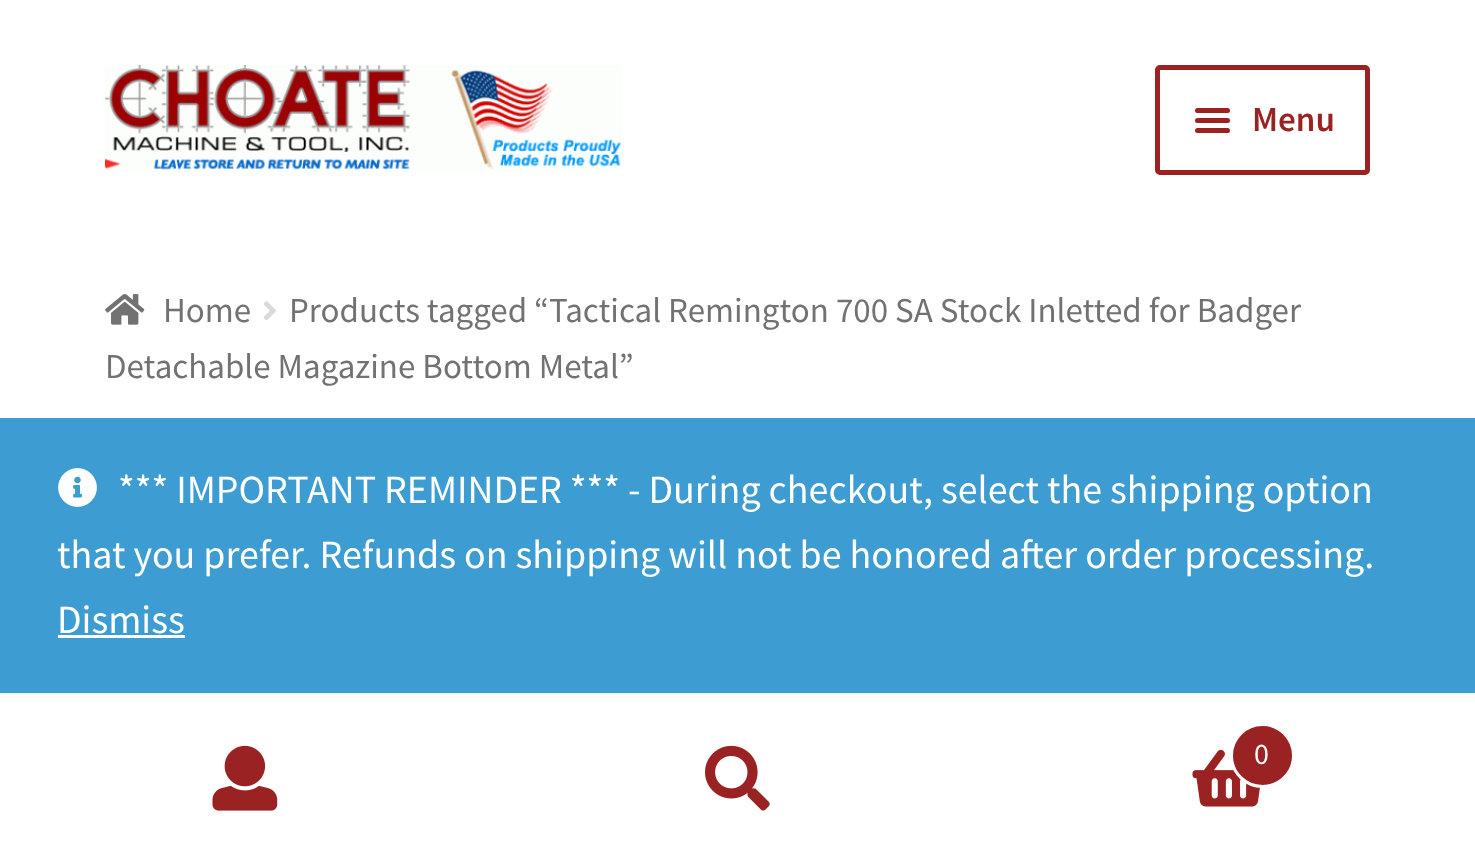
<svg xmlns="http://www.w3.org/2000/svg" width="1475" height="864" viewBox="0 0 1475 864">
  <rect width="100%" height="100%" fill="#ffffff"/>
  <image x="105" y="65" width="517" height="106" href="img1.png"/>
  <rect x="1157.5" y="67.5" width="210" height="105" rx="2.5" fill="none" stroke="#9b2222" stroke-width="5"/>
  <rect x="1195" y="108" width="35" height="5" rx="2.5" fill="#9b2222"/>
  <rect x="1195" y="118" width="35" height="5" rx="2.5" fill="#9b2222"/>
  <text x="1252" y="131" font-family="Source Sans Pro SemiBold" font-size="35" font-weight="600" fill="#9b2222">Menu</text>
  <rect x="1195" y="128" width="35" height="5" rx="2.5" fill="#9b2222"/>
  <image x="105" y="294" width="40" height="31" href="img2.png"/>
  <text x="163" y="322" font-family="Source Sans Pro" font-size="35" fill="#727272">Home</text>
  <image x="263" y="301" width="13" height="20" href="img3.png"/>
  <text x="289" y="322" font-family="Source Sans Pro" font-size="35" fill="#727272">Products tagged “Tactical Remington 700 SA Stock Inletted for Badger</text>
  <text x="105" y="378" font-family="Source Sans Pro" font-size="35" fill="#727272">Detachable Magazine Bottom Metal”</text>
  <image x="212" y="745" width="66" height="66" href="img4.png"/>
  <image x="705" y="745" width="65" height="66" href="img5.png"/>
  <image x="1192" y="749" width="68" height="58" href="img6.png"/>
  <circle cx="1262.5" cy="755.5" r="31" fill="#9b2222" stroke="#ffffff" stroke-width="3"/>
  <text x="1254" y="764" font-family="Source Sans Pro" font-size="30" fill="#ffffff">0</text>
  <rect x="0" y="418" width="1475" height="275" fill="#3d9cd2"/>
  <image x="58" y="468" width="39" height="39" href="img7.png"/>
  <text x="118" y="503" font-family="Source Sans Pro" font-size="40" fill="#ffffff">*** IMPORTANT REMINDER *** - During checkout, select the shipping option</text>
  <text x="57" y="568" font-family="Source Sans Pro" font-size="40" fill="#ffffff">that you prefer. Refunds on shipping will not be honored after order processing.</text>
  <text x="57" y="633" font-family="Source Sans Pro" font-size="40" fill="#ffffff">Dismiss</text>
  <rect x="58" y="635" width="127" height="3" fill="#ffffff"/>
</svg>
